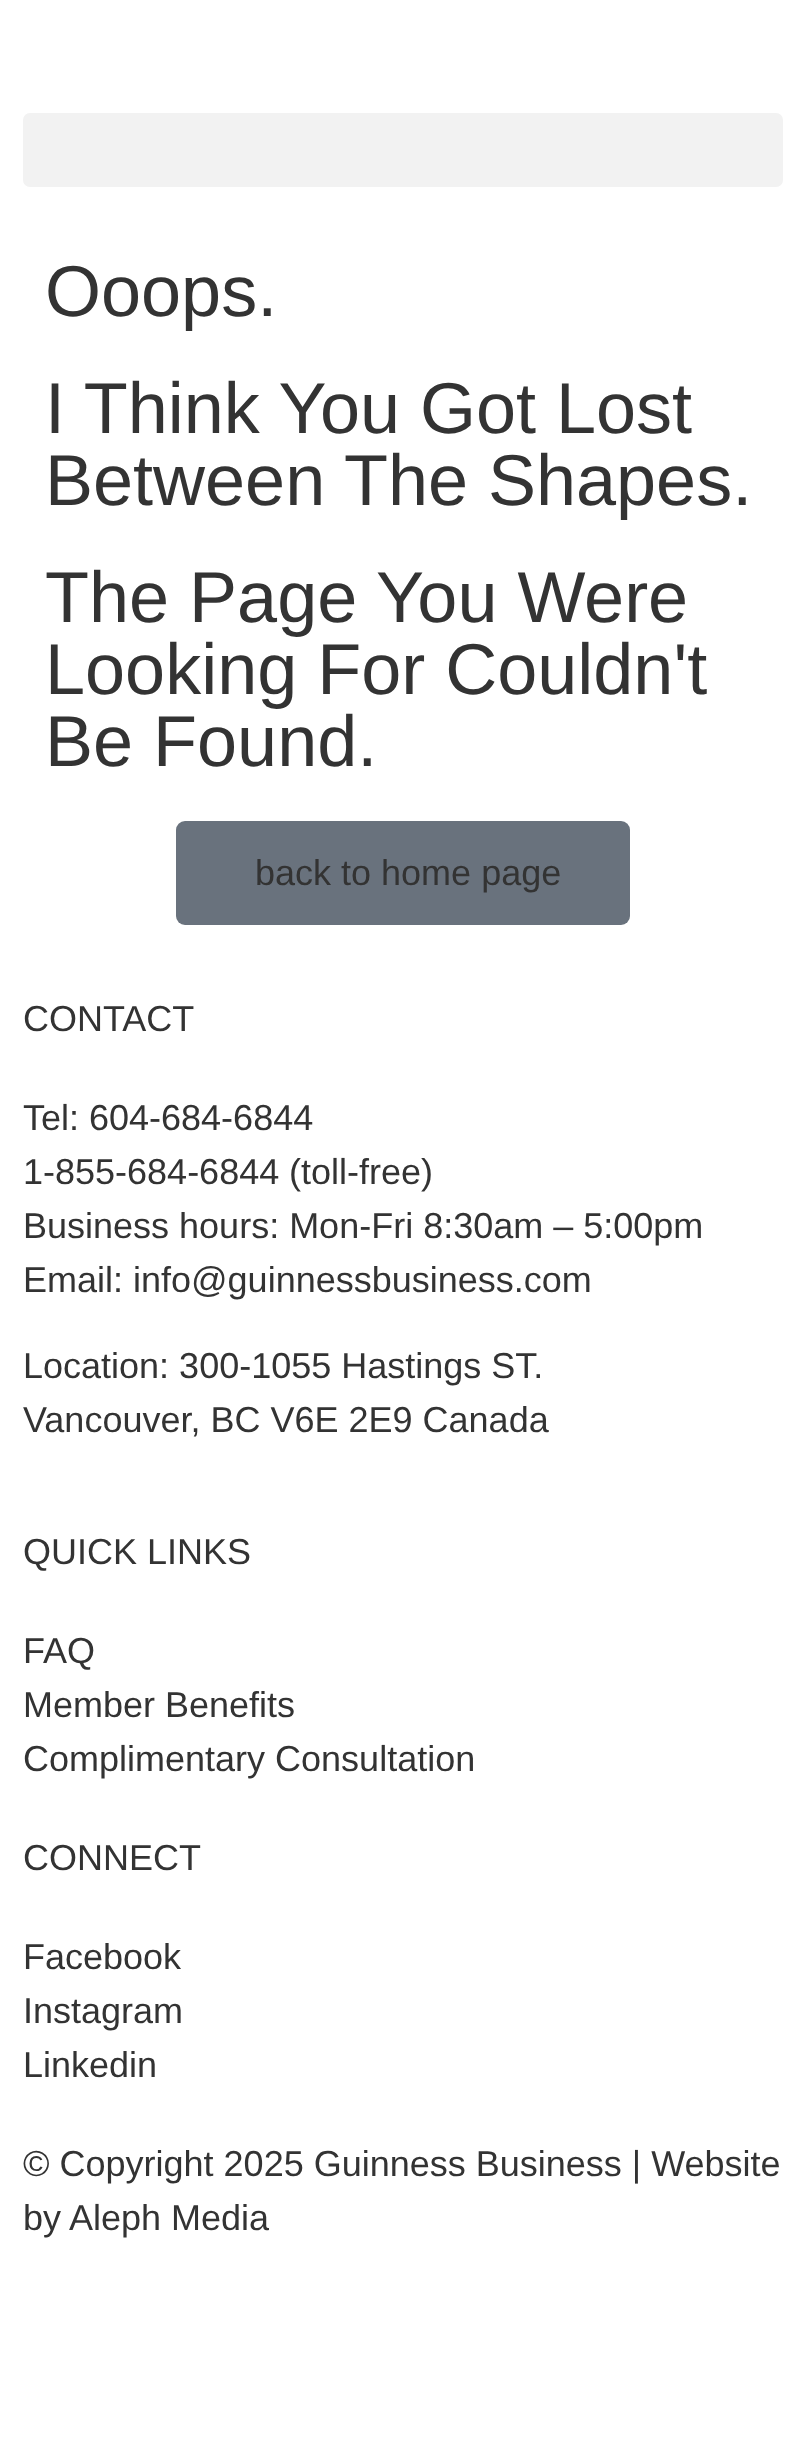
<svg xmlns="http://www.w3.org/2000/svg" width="804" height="2439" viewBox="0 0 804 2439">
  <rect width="100%" height="100%" fill="#ffffff"/>
  <rect x="23" y="113" width="760" height="74" rx="7" fill="#f2f2f2"/>
  <text x="45" y="316" font-family="Liberation Sans" font-size="72" fill="#333333">Ooops.</text>
  <text x="45" y="433" font-family="Liberation Sans" font-size="72" fill="#333333">I Think You Got Lost</text>
  <text x="45" y="505" font-family="Liberation Sans" font-size="72" fill="#333333">Between The Shapes.</text>
  <text x="45" y="622" font-family="Liberation Sans" font-size="72" fill="#333333">The Page You Were</text>
  <text x="45" y="694" font-family="Liberation Sans" font-size="72" fill="#333333">Looking For Couldn't</text>
  <text x="45" y="766" font-family="Liberation Sans" font-size="72" fill="#333333">Be Found.</text>
  <rect x="176" y="821" width="454" height="104" rx="9" fill="#69727d"/>
  <text x="255" y="885" font-family="Liberation Sans" font-size="36" fill="#333333">back to home page</text>
  <text x="23" y="1031" font-family="Liberation Sans" font-size="36" fill="#333333">CONTACT</text>
  <text x="23" y="1130" font-family="Liberation Sans" font-size="36" fill="#333333">Tel:</text>
  <text x="89" y="1130" font-family="Liberation Sans" font-size="36" fill="#333333">604-684-6844</text>
  <text x="23" y="1184" font-family="Liberation Sans" font-size="36" fill="#333333">1-855-684-6844</text>
  <text x="289" y="1184" font-family="Liberation Sans" font-size="36" fill="#333333">(toll-free)</text>
  <text x="23" y="1238" font-family="Liberation Sans" font-size="36" fill="#333333">Business hours: Mon-Fri 8:30am – 5:00pm</text>
  <text x="23" y="1292" font-family="Liberation Sans" font-size="36" fill="#333333">Email:</text>
  <text x="133" y="1292" font-family="Liberation Sans" font-size="36" fill="#333333">info@guinnessbusiness.com</text>
  <text x="23" y="1378" font-family="Liberation Sans" font-size="36" fill="#333333">Location: 300-1055 Hastings ST.</text>
  <text x="23" y="1432" font-family="Liberation Sans" font-size="36" fill="#333333">Vancouver, BC V6E 2E9 Canada</text>
  <text x="23" y="1564" font-family="Liberation Sans" font-size="36" fill="#333333">QUICK LINKS</text>
  <text x="23" y="1663" font-family="Liberation Sans" font-size="36" fill="#333333">FAQ</text>
  <text x="23" y="1717" font-family="Liberation Sans" font-size="36" fill="#333333">Member Benefits</text>
  <text x="23" y="1771" font-family="Liberation Sans" font-size="36" fill="#333333">Complimentary Consultation</text>
  <text x="23" y="1870" font-family="Liberation Sans" font-size="36" fill="#333333">CONNECT</text>
  <text x="23" y="1969" font-family="Liberation Sans" font-size="36" fill="#333333">Facebook</text>
  <text x="23" y="2023" font-family="Liberation Sans" font-size="36" fill="#333333">Instagram</text>
  <text x="23" y="2077" font-family="Liberation Sans" font-size="36" fill="#333333">Linkedin</text>
  <text x="23" y="2176" font-family="Liberation Sans" font-size="36" fill="#333333">© Copyright 2025 Guinness Business | Website</text>
  <text x="23" y="2230" font-family="Liberation Sans" font-size="36" fill="#333333">by</text>
  <text x="69" y="2230" font-family="Liberation Sans" font-size="36" fill="#333333">Aleph Media</text>
</svg>
